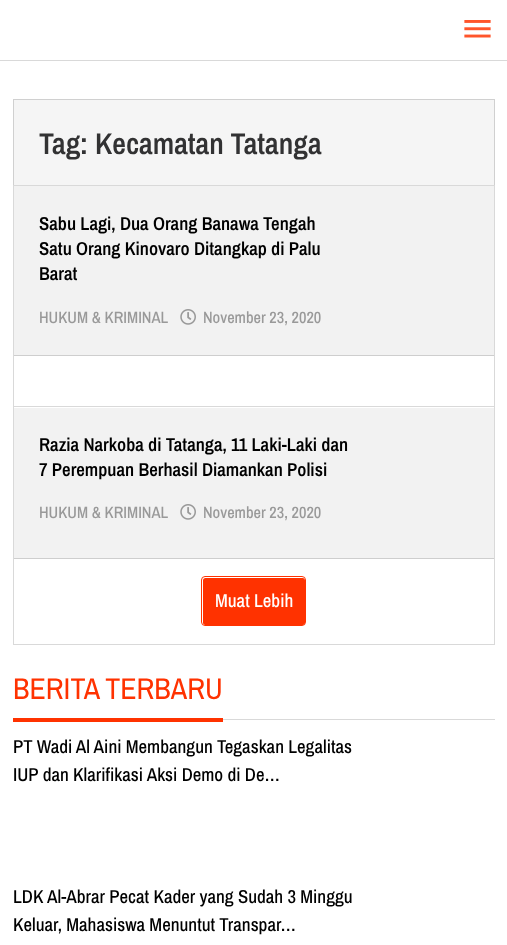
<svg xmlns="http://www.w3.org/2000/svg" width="507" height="945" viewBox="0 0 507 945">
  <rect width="100%" height="100%" fill="#ffffff"/>
  <rect x="0" y="60" width="507" height="1" fill="#d9d9d9"/>
  <image x="464" y="20" width="27" height="18" href="img1.png"/>
  <rect x="13.5" y="99.5" width="481" height="86" fill="#f5f5f5" stroke="#d0d0d0"/>
  <text x="39" y="154" font-family="Archivo Narrow" font-size="30" font-weight="600" fill="#323233">Tag: Kecamatan Tatanga</text>
  <rect x="13.5" y="185.5" width="481" height="459" fill="none" stroke="#d9d9d9"/>
  <rect x="14" y="186" width="480" height="169" fill="#f2f2f2"/>
  <rect x="14" y="355" width="480" height="1" fill="#cecece"/>
  <text x="39" y="230" font-family="Archivo Narrow" font-size="18.75" font-weight="600" fill="#000000">Sabu Lagi, Dua Orang Banawa Tengah</text>
  <text x="39" y="255" font-family="Archivo Narrow" font-size="18.75" font-weight="600" fill="#000000">Satu Orang Kinovaro Ditangkap di Palu</text>
  <text x="39" y="280" font-family="Archivo Narrow" font-size="18.75" font-weight="600" fill="#000000">Barat</text>
  <text x="39" y="323" font-family="Archivo Narrow" font-size="16.25" font-weight="500" fill="#999999">HUKUM &amp; KRIMINAL</text>
  <image x="180" y="309" width="16" height="16" href="img2.png"/>
  <text x="203" y="323" font-family="Archivo Narrow" font-size="16.25" font-weight="500" fill="#999999">November 23, 2020</text>
  <rect x="14" y="406" width="480" height="1" fill="#d9d9d9"/>
  <rect x="14" y="408" width="480" height="150" fill="#f2f2f2"/>
  <rect x="14" y="558" width="480" height="1" fill="#cecece"/>
  <text x="39" y="451" font-family="Archivo Narrow" font-size="18.75" font-weight="600" fill="#000000">Razia Narkoba di Tatanga, 11 Laki-Laki dan</text>
  <text x="39" y="476" font-family="Archivo Narrow" font-size="18.75" font-weight="600" fill="#000000">7 Perempuan Berhasil Diamankan Polisi</text>
  <text x="39" y="518" font-family="Archivo Narrow" font-size="16.25" font-weight="500" fill="#999999">HUKUM &amp; KRIMINAL</text>
  <image x="180" y="504" width="16" height="16" href="img2.png"/>
  <text x="203" y="518" font-family="Archivo Narrow" font-size="16.25" font-weight="500" fill="#999999">November 23, 2020</text>
  <rect x="203" y="578" width="102" height="47" rx="2.5" fill="#ff3200"/>
  <rect x="201.5" y="576.5" width="104" height="49" rx="3.5" fill="none" stroke="#ff3200"/>
  <text x="215" y="607" font-family="Archivo Narrow" font-size="18.75" font-weight="500" fill="#ffffff">Muat Lebih</text>
  <rect x="223" y="719" width="272" height="1" fill="#d9d9d9"/>
  <rect x="13" y="718" width="210" height="4" fill="#ff3200"/>
  <text x="13" y="699" font-family="Archivo Narrow" font-size="30" fill="#ff3200">BERITA TERBARU</text>
  <text x="13" y="753" font-family="Archivo Narrow" font-size="18.75" font-weight="500" fill="#000000">PT Wadi Al Aini Membangun Tegaskan Legalitas</text>
  <text x="13" y="781" font-family="Archivo Narrow" font-size="18.75" font-weight="500" fill="#000000">IUP dan Klarifikasi Aksi Demo di De…</text>
  <text x="13" y="903" font-family="Archivo Narrow" font-size="18.75" font-weight="500" fill="#000000">LDK Al-Abrar Pecat Kader yang Sudah 3 Minggu</text>
  <text x="13" y="931" font-family="Archivo Narrow" font-size="18.75" font-weight="500" fill="#000000">Keluar, Mahasiswa Menuntut Transpar…</text>
</svg>
